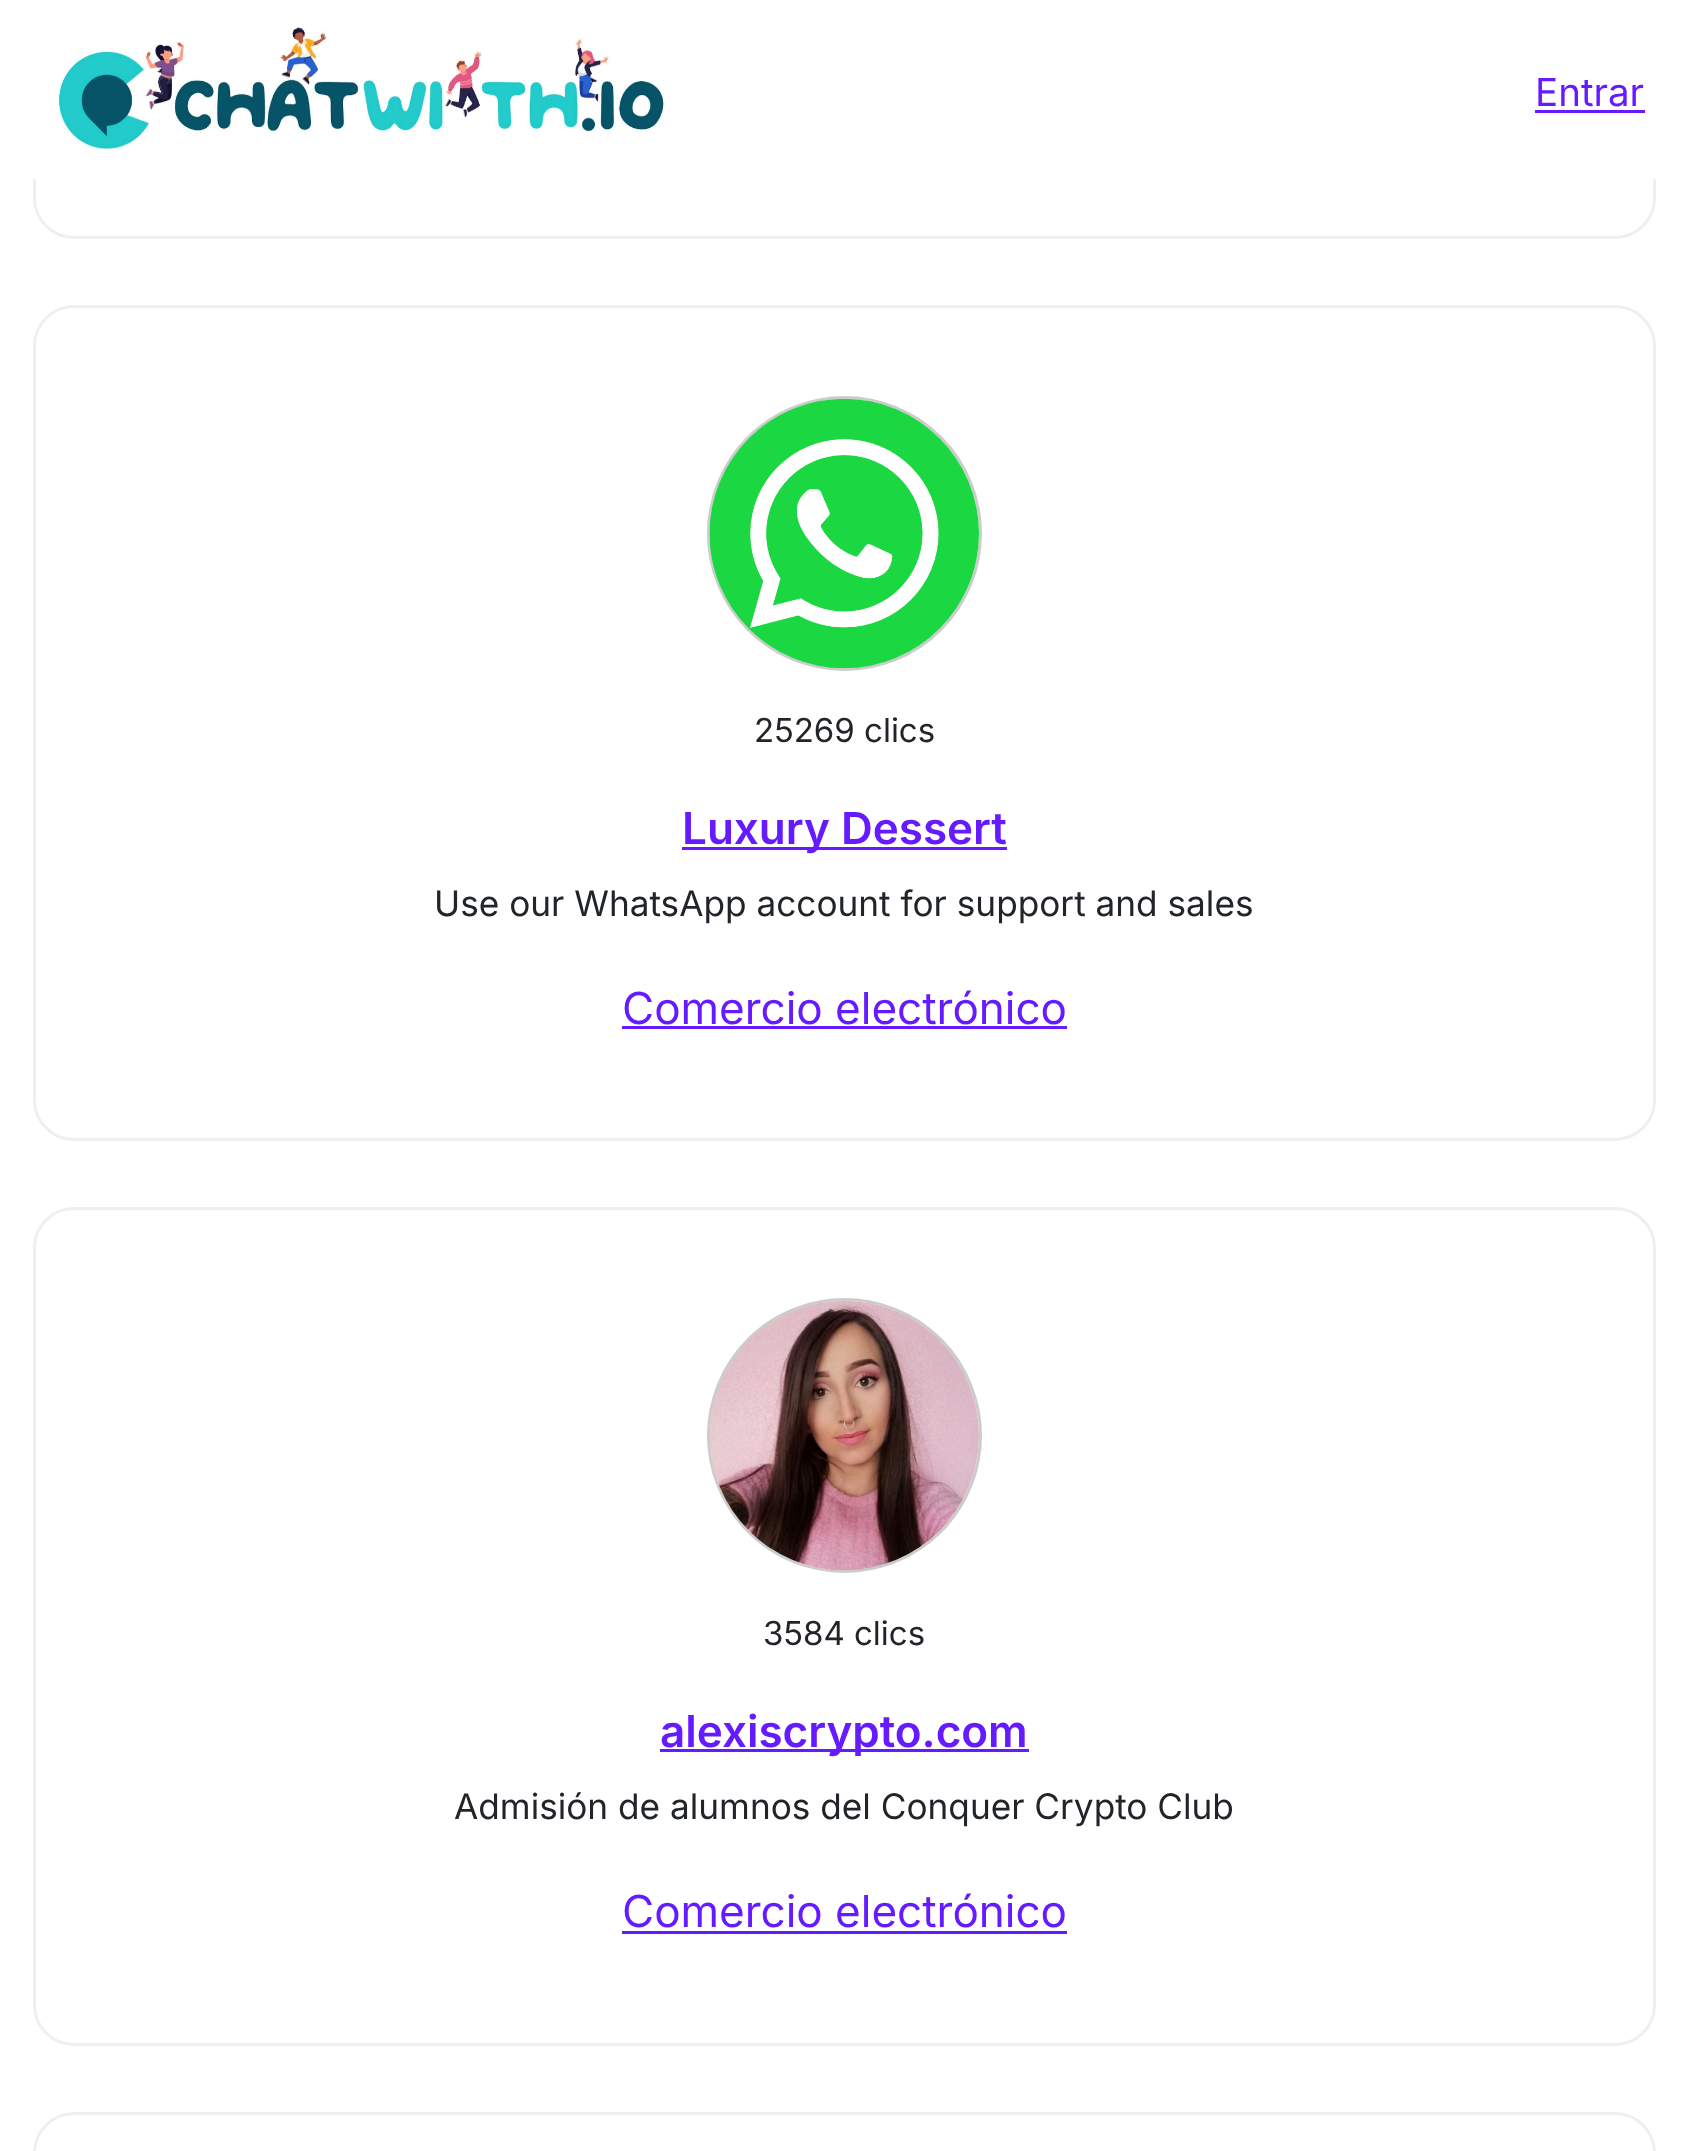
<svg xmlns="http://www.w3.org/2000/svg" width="1686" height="2151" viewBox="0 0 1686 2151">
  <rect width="100%" height="100%" fill="#ffffff"/>
  <rect x="34.5" y="-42.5" width="1620" height="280" rx="39.5" fill="none" stroke="#efeff2" stroke-width="3"/>
  <rect x="33" y="0" width="1623" height="179" fill="#ffffff"/>
  <image x="58" y="26" width="606" height="124" href="img1.png"/>
  <text x="1535" y="106" font-family="Inter" font-size="38.5" fill="#661aff">Entrar</text>
  <rect x="1535" y="110" width="110" height="3" fill="#661aff"/>
  <rect x="34.5" y="306.5" width="1620" height="833" rx="39.5" fill="none" stroke="#efeff2" stroke-width="3"/>
  <circle cx="844.5" cy="533.5" r="136" fill="none" stroke="#cccccc" stroke-width="3"/>
  <image x="709" y="398" width="270" height="271" href="img2.png"/>
  <text x="754" y="742" font-family="Inter" font-size="33" fill="#212529">25269 clics</text>
  <rect x="682" y="847" width="325" height="3" fill="#661aff"/>
  <text x="682" y="844" font-family="Inter" font-size="44" font-weight="600" fill="#661aff">Luxury Dessert</text>
  <text x="434" y="916" font-family="Inter" font-size="35.2" fill="#212529">Use our WhatsApp account for support and sales</text>
  <text x="622" y="1024" font-family="Inter" font-size="44" fill="#661aff">Comercio electrónico</text>
  <rect x="622" y="1026" width="445" height="3" fill="#661aff"/>
  <rect x="34.5" y="1208.5" width="1620" height="836" rx="39.5" fill="none" stroke="#efeff2" stroke-width="3"/>
  <circle cx="844.5" cy="1435.5" r="136" fill="none" stroke="#cccccc" stroke-width="3"/>
  <image x="709" y="1301" width="270" height="269" href="img3.png"/>
  <text x="763" y="1645" font-family="Inter" font-size="33" fill="#212529">3584 clics</text>
  <rect x="660" y="1749" width="369" height="3" fill="#661aff"/>
  <text x="660" y="1747" font-family="Inter" font-size="44" font-weight="600" fill="#661aff">alexiscrypto.com</text>
  <text x="454" y="1819" font-family="Inter" font-size="35.2" fill="#212529">Admisión de alumnos del Conquer Crypto Club</text>
  <text x="622" y="1927" font-family="Inter" font-size="44" fill="#661aff">Comercio electrónico</text>
  <rect x="622" y="1931" width="445" height="3" fill="#661aff"/>
  <rect x="34.5" y="2113.5" width="1620" height="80" rx="39.5" fill="none" stroke="#efeff2" stroke-width="3"/>
</svg>
